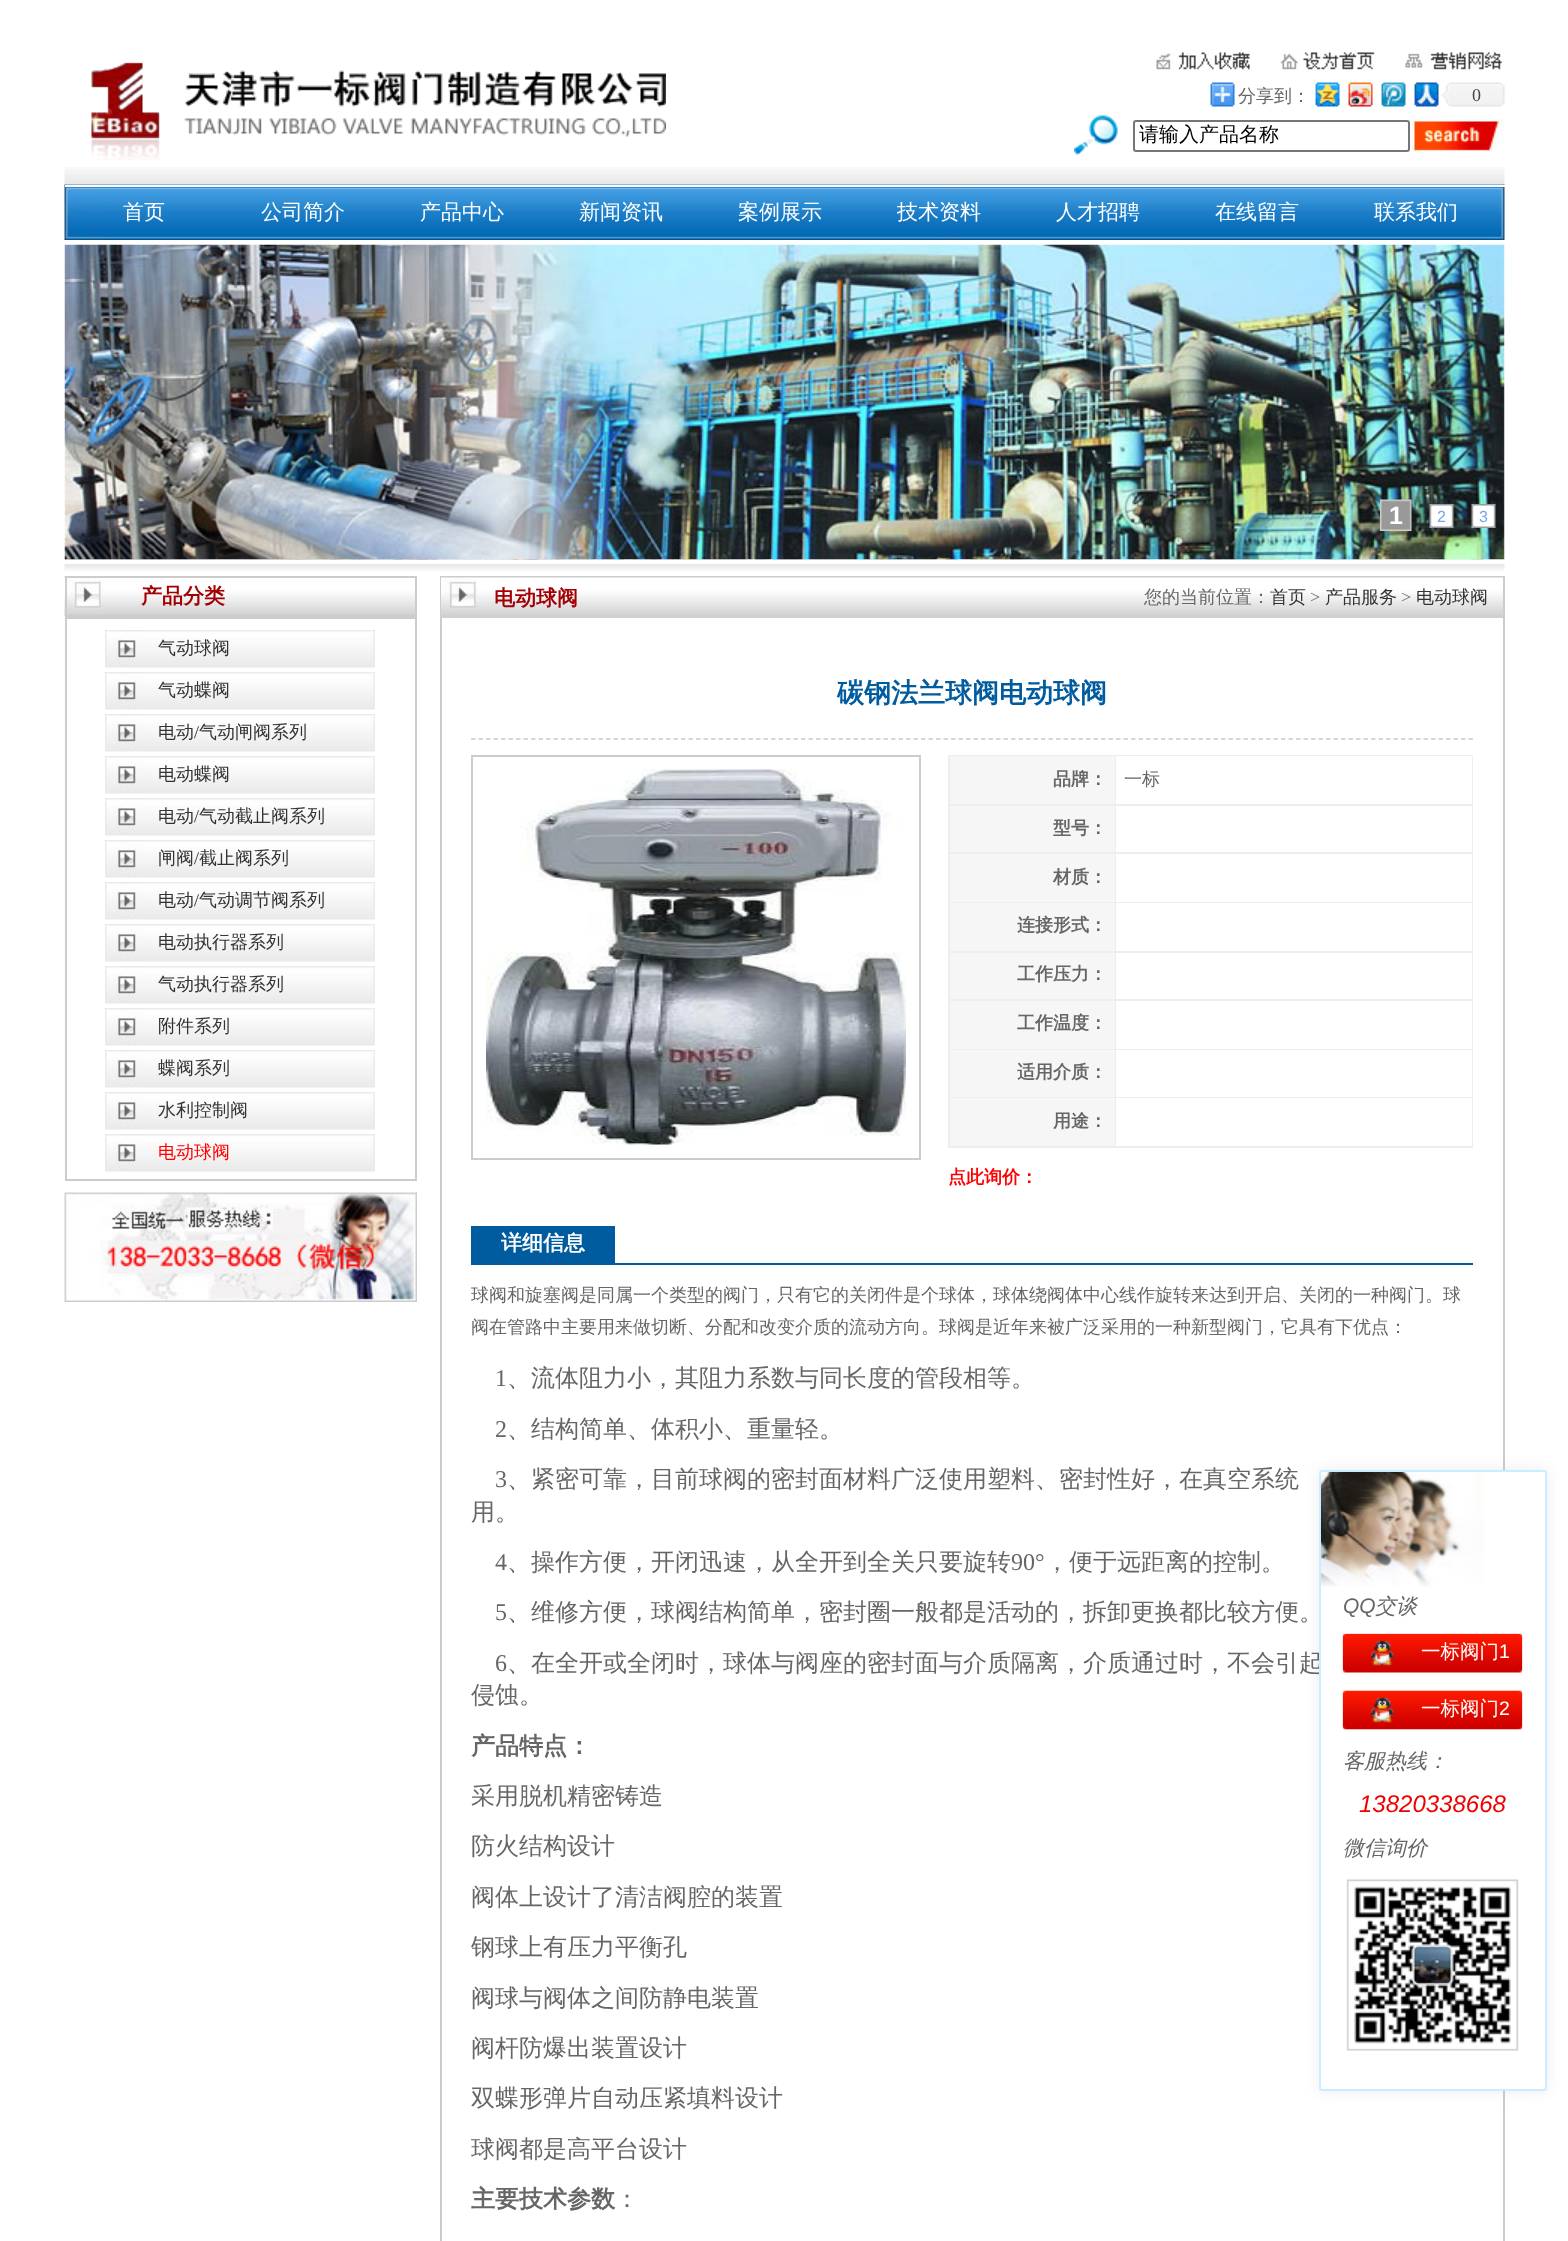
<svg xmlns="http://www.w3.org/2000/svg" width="1568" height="2241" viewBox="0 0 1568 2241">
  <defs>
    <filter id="blur1" x="-50%" y="-200%" width="200%" height="500%"><feGaussianBlur stdDeviation="7.5"/></filter>
  </defs>
  <rect width="100%" height="100%" fill="#ffffff"/>
  <image x="91" y="62" width="575" height="98" href="img1.png"/>
  <image x="1156" y="52" width="94" height="18" href="img2.png"/>
  <image x="1280" y="52" width="95" height="18" href="img3.png"/>
  <image x="1405" y="52" width="97" height="18" href="img4.png"/>
  <image x="1210" y="82" width="25" height="25" href="img5.png"/>
  <text x="1238" y="102" font-family="WenQuanYi Zen Hei" font-size="18" font-weight="500" fill="#666666">分享到：</text>
  <image x="1315" y="82" width="25" height="25" href="img6.png"/>
  <image x="1348" y="82" width="25" height="25" href="img7.png"/>
  <image x="1381" y="82" width="25" height="25" href="img8.png"/>
  <image x="1414" y="82" width="25" height="25" href="img9.png"/>
  <image x="1441" y="82" width="64" height="25" href="img10.png"/>
  <text x="1472" y="101" font-family="Liberation Serif" font-size="18" fill="#454545">0</text>
  <image x="1074" y="115" width="44" height="40" href="img11.png"/>
  <rect x="1134" y="121" width="275" height="30" rx="2" fill="none" stroke="#767676" stroke-width="2"/>
  <text x="1139" y="141" font-family="WenQuanYi Zen Hei" font-size="20" font-weight="500" fill="#000000">请输入产品名称</text>
  <image x="1410" y="118" width="95" height="35" href="img12.png"/>
  <image x="64" y="167" width="1441" height="18" href="img13.png"/>
  <image x="64" y="184" width="1441" height="56" href="img14.png"/>
  <rect x="65" y="185" width="1440" height="2" fill="#ffffff"/>
  <text x="123" y="219" font-family="WenQuanYi Zen Hei" font-size="21" font-weight="500" fill="#ffffff">首页</text>
  <text x="261" y="219" font-family="WenQuanYi Zen Hei" font-size="21" font-weight="500" fill="#ffffff">公司简介</text>
  <text x="420" y="219" font-family="WenQuanYi Zen Hei" font-size="21" font-weight="500" fill="#ffffff">产品中心</text>
  <text x="579" y="219" font-family="WenQuanYi Zen Hei" font-size="21" font-weight="500" fill="#ffffff">新闻资讯</text>
  <text x="738" y="219" font-family="WenQuanYi Zen Hei" font-size="21" font-weight="500" fill="#ffffff">案例展示</text>
  <text x="897" y="219" font-family="WenQuanYi Zen Hei" font-size="21" font-weight="500" fill="#ffffff">技术资料</text>
  <text x="1056" y="219" font-family="WenQuanYi Zen Hei" font-size="21" font-weight="500" fill="#ffffff">人才招聘</text>
  <text x="1215" y="219" font-family="WenQuanYi Zen Hei" font-size="21" font-weight="500" fill="#ffffff">在线留言</text>
  <text x="1374" y="219" font-family="WenQuanYi Zen Hei" font-size="21" font-weight="500" fill="#ffffff">联系我们</text>
  <image x="64" y="244" width="1441" height="316" href="img15.png"/>
  <image x="64" y="559" width="1441" height="1" href="img16.png"/>
  <image x="1380" y="499" width="32" height="32" href="img17.png"/>
  <text x="1389" y="524" font-family="Liberation Sans" font-size="25" font-weight="bold" fill="#ffffff">1</text>
  <image x="1429" y="504" width="25" height="24" href="img18.png"/>
  <text x="1437" y="522" font-family="Liberation Sans" font-size="16" fill="#74a8ed">2</text>
  <image x="1471" y="504" width="25" height="24" href="img19.png"/>
  <text x="1479" y="522" font-family="Liberation Sans" font-size="16" fill="#74a8ed">3</text>
  <image x="64" y="564" width="1441" height="7" href="img20.png"/>
  <image x="64" y="576" width="351" height="41" href="img21.png"/>
  <rect x="66" y="577" width="350" height="39" fill="none" stroke="#cccccc" stroke-width="2"/>
  <text x="141" y="603" font-family="WenQuanYi Zen Hei" font-size="21" font-weight="bold" fill="#a20004">产品分类</text>
  <rect x="66" y="618" width="350" height="562" fill="none" stroke="#cccccc" stroke-width="2"/>
  <image x="105" y="630" width="270" height="38" href="img22.png"/>
  <text x="158" y="654" font-family="WenQuanYi Zen Hei" font-size="18" font-weight="500" fill="#333333">气动球阀</text>
  <image x="105" y="672" width="270" height="38" href="img22.png"/>
  <text x="158" y="696" font-family="WenQuanYi Zen Hei" font-size="18" font-weight="500" fill="#333333">气动蝶阀</text>
  <image x="105" y="714" width="270" height="38" href="img22.png"/>
  <text x="158" y="738" font-family="WenQuanYi Zen Hei" font-size="18" font-weight="500" fill="#333333">电动</text>
  <text x="194" y="738" font-family="Liberation Serif" font-size="18" fill="#333333">/</text>
  <text x="199" y="738" font-family="WenQuanYi Zen Hei" font-size="18" font-weight="500" fill="#333333">气动闸阀系列</text>
  <image x="105" y="756" width="270" height="38" href="img22.png"/>
  <text x="158" y="780" font-family="WenQuanYi Zen Hei" font-size="18" font-weight="500" fill="#333333">电动蝶阀</text>
  <image x="105" y="798" width="270" height="38" href="img22.png"/>
  <text x="158" y="822" font-family="WenQuanYi Zen Hei" font-size="18" font-weight="500" fill="#333333">电动</text>
  <text x="194" y="822" font-family="Liberation Serif" font-size="18" fill="#333333">/</text>
  <text x="199" y="822" font-family="WenQuanYi Zen Hei" font-size="18" font-weight="500" fill="#333333">气动截止阀系列</text>
  <image x="105" y="840" width="270" height="38" href="img22.png"/>
  <text x="158" y="864" font-family="WenQuanYi Zen Hei" font-size="18" font-weight="500" fill="#333333">闸阀</text>
  <text x="194" y="864" font-family="Liberation Serif" font-size="18" fill="#333333">/</text>
  <text x="199" y="864" font-family="WenQuanYi Zen Hei" font-size="18" font-weight="500" fill="#333333">截止阀系列</text>
  <image x="105" y="882" width="270" height="38" href="img22.png"/>
  <text x="158" y="906" font-family="WenQuanYi Zen Hei" font-size="18" font-weight="500" fill="#333333">电动</text>
  <text x="194" y="906" font-family="Liberation Serif" font-size="18" fill="#333333">/</text>
  <text x="199" y="906" font-family="WenQuanYi Zen Hei" font-size="18" font-weight="500" fill="#333333">气动调节阀系列</text>
  <image x="105" y="924" width="270" height="38" href="img22.png"/>
  <text x="158" y="948" font-family="WenQuanYi Zen Hei" font-size="18" font-weight="500" fill="#333333">电动执行器系列</text>
  <image x="105" y="966" width="270" height="38" href="img22.png"/>
  <text x="158" y="990" font-family="WenQuanYi Zen Hei" font-size="18" font-weight="500" fill="#333333">气动执行器系列</text>
  <image x="105" y="1008" width="270" height="38" href="img22.png"/>
  <text x="158" y="1032" font-family="WenQuanYi Zen Hei" font-size="18" font-weight="500" fill="#333333">附件系列</text>
  <image x="105" y="1050" width="270" height="38" href="img22.png"/>
  <text x="158" y="1074" font-family="WenQuanYi Zen Hei" font-size="18" font-weight="500" fill="#333333">蝶阀系列</text>
  <image x="105" y="1092" width="270" height="38" href="img22.png"/>
  <text x="158" y="1116" font-family="WenQuanYi Zen Hei" font-size="18" font-weight="500" fill="#333333">水利控制阀</text>
  <image x="105" y="1134" width="270" height="38" href="img22.png"/>
  <text x="158" y="1158" font-family="WenQuanYi Zen Hei" font-size="18" font-weight="500" fill="#ff0000">电动球阀</text>
  <image x="64" y="1192" width="353" height="110" href="img23.png"/>
  <rect x="441" y="577" width="1063" height="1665" fill="none" stroke="#cccccc" stroke-width="2"/>
  <image x="441" y="577" width="1062" height="41" href="img24.png"/>
  <text x="494" y="605" font-family="WenQuanYi Zen Hei" font-size="21" font-weight="bold" fill="#a20004">电动球阀</text>
  <text x="1144" y="603" font-family="WenQuanYi Zen Hei" font-size="18" font-weight="500" fill="#666666">您的当前位置：</text>
  <text x="1270" y="603" font-family="WenQuanYi Zen Hei" font-size="18" font-weight="500" fill="#333333">首页</text>
  <text x="1310" y="603" font-family="Liberation Serif" font-size="18" fill="#666666">&gt;</text>
  <text x="1325" y="603" font-family="WenQuanYi Zen Hei" font-size="18" font-weight="500" fill="#333333">产品服务</text>
  <text x="1401" y="603" font-family="Liberation Serif" font-size="18" fill="#666666">&gt;</text>
  <text x="1416" y="603" font-family="WenQuanYi Zen Hei" font-size="18" font-weight="500" fill="#333333">电动球阀</text>
  <path d="M471 739H1473" fill="none" stroke="#cccccc" stroke-width="1.5" stroke-dasharray="4.5 3"/>
  <text x="837" y="702" font-family="WenQuanYi Zen Hei" font-size="27" font-weight="bold" fill="#005c9f">碳钢法兰球阀电动球阀</text>
  <rect x="472" y="756" width="448" height="403" fill="none" stroke="#cccccc" stroke-width="2"/>
  <image x="486" y="769" width="420" height="376" href="img25.png"/>
  <rect x="948" y="755" width="525" height="393" fill="#eeeeee"/>
  <rect x="950" y="756" width="165" height="48" fill="#f6f6f6"/>
  <text x="1053" y="785" font-family="WenQuanYi Zen Hei" font-size="18" font-weight="bold" fill="#666666">品牌：</text>
  <rect x="1116" y="756" width="356" height="48" fill="#ffffff"/>
  <text x="1124" y="785" font-family="WenQuanYi Zen Hei" font-size="18" font-weight="500" fill="#666666">一标</text>
  <rect x="950" y="806" width="165" height="46" fill="#f6f6f6"/>
  <text x="1053" y="834" font-family="WenQuanYi Zen Hei" font-size="18" font-weight="bold" fill="#666666">型号：</text>
  <rect x="1116" y="806" width="356" height="46" fill="#ffffff"/>
  <rect x="950" y="854" width="165" height="48" fill="#f6f6f6"/>
  <text x="1053" y="883" font-family="WenQuanYi Zen Hei" font-size="18" font-weight="bold" fill="#666666">材质：</text>
  <rect x="1116" y="854" width="356" height="48" fill="#ffffff"/>
  <rect x="950" y="903" width="165" height="48" fill="#f6f6f6"/>
  <text x="1017" y="931" font-family="WenQuanYi Zen Hei" font-size="18" font-weight="bold" fill="#666666">连接形式：</text>
  <rect x="1116" y="903" width="356" height="48" fill="#ffffff"/>
  <rect x="950" y="953" width="165" height="46" fill="#f6f6f6"/>
  <text x="1017" y="980" font-family="WenQuanYi Zen Hei" font-size="18" font-weight="bold" fill="#666666">工作压力：</text>
  <rect x="1116" y="953" width="356" height="46" fill="#ffffff"/>
  <rect x="950" y="1001" width="165" height="48" fill="#f6f6f6"/>
  <text x="1017" y="1029" font-family="WenQuanYi Zen Hei" font-size="18" font-weight="bold" fill="#666666">工作温度：</text>
  <rect x="1116" y="1001" width="356" height="48" fill="#ffffff"/>
  <rect x="950" y="1050" width="165" height="47" fill="#f6f6f6"/>
  <text x="1017" y="1078" font-family="WenQuanYi Zen Hei" font-size="18" font-weight="bold" fill="#666666">适用介质：</text>
  <rect x="1116" y="1050" width="356" height="47" fill="#ffffff"/>
  <rect x="950" y="1098" width="165" height="48" fill="#f6f6f6"/>
  <text x="1053" y="1127" font-family="WenQuanYi Zen Hei" font-size="18" font-weight="bold" fill="#666666">用途：</text>
  <rect x="1116" y="1098" width="356" height="48" fill="#ffffff"/>
  <text x="948" y="1183" font-family="WenQuanYi Zen Hei" font-size="18" font-weight="bold" fill="#ff0000">点此询价：</text>
  <rect x="471" y="1263" width="1002" height="2" fill="#005c9f"/>
  <rect x="471" y="1226" width="144" height="37" fill="#005c9f"/>
  <text x="501" y="1250" font-family="WenQuanYi Zen Hei" font-size="21" font-weight="bold" fill="#ffffff">详细信息</text>
  <text x="471" y="1301" font-family="WenQuanYi Zen Hei" font-size="18" font-weight="500" fill="#666666">球阀和旋塞阀是同属一个类型的阀门，只有它的关闭件是个球体，球体绕阀体中心线作旋转来达到开启、关闭的一种阀门。球</text>
  <text x="471" y="1333" font-family="WenQuanYi Zen Hei" font-size="18" font-weight="500" fill="#666666">阀在管路中主要用来做切断、分配和改变介质的流动方向。球阀是近年来被广泛采用的一种新型阀门，它具有下优点：</text>
  <text x="495" y="1386" font-family="Liberation Serif" font-size="24" fill="#666666">1</text>
  <text x="507" y="1386" font-family="WenQuanYi Zen Hei" font-size="24" font-weight="500" fill="#666666">、流体阻力小，其阻力系数与同长度的管段相等。</text>
  <text x="495" y="1437" font-family="Liberation Serif" font-size="24" fill="#666666">2</text>
  <text x="507" y="1437" font-family="WenQuanYi Zen Hei" font-size="24" font-weight="500" fill="#666666">、结构简单、体积小、重量轻。</text>
  <text x="495" y="1487" font-family="Liberation Serif" font-size="24" fill="#666666">3</text>
  <text x="507" y="1487" font-family="WenQuanYi Zen Hei" font-size="24" font-weight="500" fill="#666666">、紧密可靠，目前球阀的密封面材料广泛使用塑料、密封性好，在真空系统</text>
  <text x="471" y="1520" font-family="WenQuanYi Zen Hei" font-size="24" font-weight="500" fill="#666666">用。</text>
  <text x="495" y="1570" font-family="Liberation Serif" font-size="24" fill="#666666">4</text>
  <text x="507" y="1570" font-family="WenQuanYi Zen Hei" font-size="24" font-weight="500" fill="#666666">、操作方便，开闭迅速，从全开到全关只要旋转</text>
  <text x="1011" y="1570" font-family="Liberation Serif" font-size="24" fill="#666666">90°</text>
  <text x="1045" y="1570" font-family="WenQuanYi Zen Hei" font-size="24" font-weight="500" fill="#666666">，便于远距离的控制。</text>
  <text x="495" y="1620" font-family="Liberation Serif" font-size="24" fill="#666666">5</text>
  <text x="507" y="1620" font-family="WenQuanYi Zen Hei" font-size="24" font-weight="500" fill="#666666">、维修方便，球阀结构简单，密封圈一般都是活动的，拆卸更换都比较方便。</text>
  <text x="495" y="1671" font-family="Liberation Serif" font-size="24" fill="#666666">6</text>
  <text x="507" y="1671" font-family="WenQuanYi Zen Hei" font-size="24" font-weight="500" fill="#666666">、在全开或全闭时，球体与阀座的密封面与介质隔离，介质通过时，不会引起</text>
  <text x="471" y="1703" font-family="WenQuanYi Zen Hei" font-size="24" font-weight="500" fill="#666666">侵蚀。</text>
  <text x="471" y="1754" font-family="WenQuanYi Zen Hei" font-size="24" font-weight="bold" fill="#666666">产品特点：</text>
  <text x="471" y="1804" font-family="WenQuanYi Zen Hei" font-size="24" font-weight="500" fill="#666666">采用脱机精密铸造</text>
  <text x="471" y="1854" font-family="WenQuanYi Zen Hei" font-size="24" font-weight="500" fill="#666666">防火结构设计</text>
  <text x="471" y="1905" font-family="WenQuanYi Zen Hei" font-size="24" font-weight="500" fill="#666666">阀体上设计了清洁阀腔的装置</text>
  <text x="471" y="1955" font-family="WenQuanYi Zen Hei" font-size="24" font-weight="500" fill="#666666">钢球上有压力平衡孔</text>
  <text x="471" y="2006" font-family="WenQuanYi Zen Hei" font-size="24" font-weight="500" fill="#666666">阀球与阀体之间防静电装置</text>
  <text x="471" y="2056" font-family="WenQuanYi Zen Hei" font-size="24" font-weight="500" fill="#666666">阀杆防爆出装置设计</text>
  <text x="471" y="2106" font-family="WenQuanYi Zen Hei" font-size="24" font-weight="500" fill="#666666">双蝶形弹片自动压紧填料设计</text>
  <text x="471" y="2157" font-family="WenQuanYi Zen Hei" font-size="24" font-weight="500" fill="#666666">球阀都是高平台设计</text>
  <text x="471" y="2207" font-family="WenQuanYi Zen Hei" font-size="24" font-weight="bold" fill="#666666">主要技术参数</text>
  <text x="615" y="2207" font-family="WenQuanYi Zen Hei" font-size="24" font-weight="500" fill="#666666">：</text>
  <rect x="1319" y="1470" width="228" height="621" rx="3" fill="#000000" fill-opacity="0.08" filter="url(#blur1)"/>
  <rect x="1319" y="1470" width="228" height="621" rx="3" fill="#ffffff"/>
  <image x="1319" y="1471" width="165" height="116" href="img26.png"/>
  <rect x="1320" y="1471" width="226" height="619" rx="2" fill="none" stroke="#c9eeff" stroke-width="2"/>
  <text x="1343" y="1613" font-family="Liberation Sans" font-size="21" font-style="italic" fill="#666666">QQ</text>
  <text x="1375" y="1613" font-family="WenQuanYi Zen Hei" font-size="21" font-weight="500" font-style="italic" fill="#666666">交谈</text>
  <image x="1342" y="1633" width="181" height="40" href="img27.png"/>
  <text x="1421" y="1658" font-family="WenQuanYi Zen Hei" font-size="19.5" font-weight="500" fill="#ffffff">一标阀门</text>
  <text x="1499" y="1658" font-family="Liberation Sans" font-size="19.5" fill="#ffffff">1</text>
  <image x="1342" y="1690" width="181" height="40" href="img28.png"/>
  <text x="1421" y="1715" font-family="WenQuanYi Zen Hei" font-size="19.5" font-weight="500" fill="#ffffff">一标阀门</text>
  <text x="1499" y="1715" font-family="Liberation Sans" font-size="19.5" fill="#ffffff">2</text>
  <text x="1343" y="1768" font-family="WenQuanYi Zen Hei" font-size="21" font-weight="500" font-style="italic" fill="#666666">客服热线：</text>
  <text x="1359" y="1812" font-family="Liberation Sans" font-size="24" font-style="italic" fill="#ee0000">13820338668</text>
  <text x="1343" y="1855" font-family="WenQuanYi Zen Hei" font-size="21" font-weight="500" font-style="italic" fill="#666666">微信询价</text>
  <image x="1346" y="1879" width="173" height="172" href="img29.png"/>
</svg>
